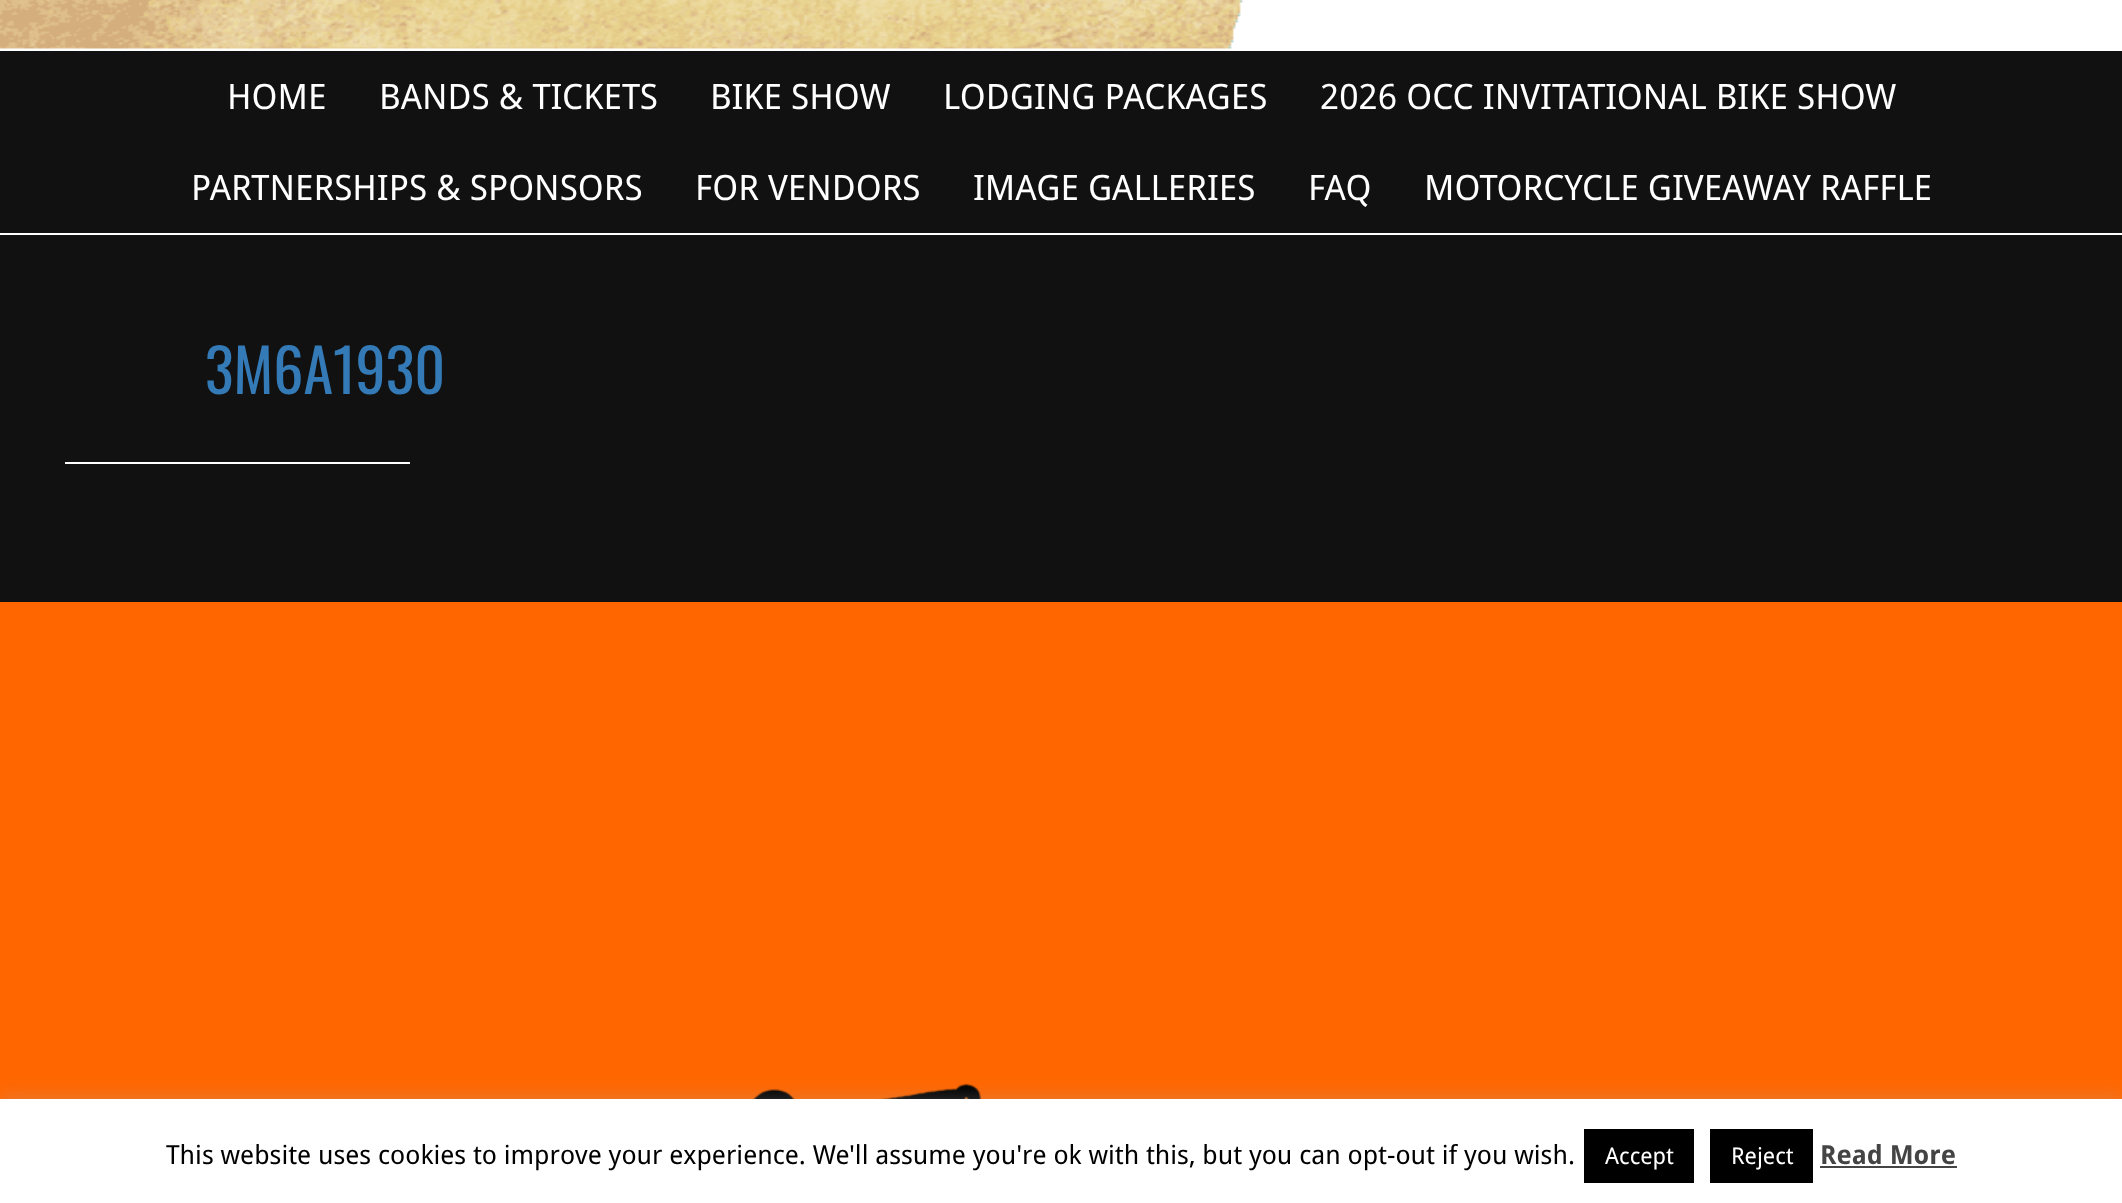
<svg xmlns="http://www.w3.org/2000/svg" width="2122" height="1203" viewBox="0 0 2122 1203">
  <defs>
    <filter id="blur1" x="-50%" y="-200%" width="200%" height="500%"><feGaussianBlur stdDeviation="9"/></filter>
  </defs>
  <rect width="100%" height="100%" fill="#ffffff"/>
  <image x="0" y="0" width="1243" height="49" href="img1.png"/>
  <rect x="0" y="51" width="2122" height="182" fill="#111111"/>
  <text x="227" y="109" font-family="Droid Sans" font-size="35" fill="#ffffff">HOME</text>
  <text x="379" y="109" font-family="Droid Sans" font-size="35" fill="#ffffff">BANDS &amp; TICKETS</text>
  <text x="710" y="109" font-family="Droid Sans" font-size="35" fill="#ffffff">BIKE SHOW</text>
  <text x="943" y="109" font-family="Droid Sans" font-size="35" fill="#ffffff">LODGING PACKAGES</text>
  <text x="1320" y="109" font-family="Droid Sans" font-size="35" fill="#ffffff">2026 OCC INVITATIONAL BIKE SHOW</text>
  <text x="191" y="200" font-family="Droid Sans" font-size="35" fill="#ffffff">PARTNERSHIPS &amp; SPONSORS</text>
  <text x="695" y="200" font-family="Droid Sans" font-size="35" fill="#ffffff">FOR VENDORS</text>
  <text x="973" y="200" font-family="Droid Sans" font-size="35" fill="#ffffff">IMAGE GALLERIES</text>
  <text x="1308" y="200" font-family="Droid Sans" font-size="35" fill="#ffffff">FAQ</text>
  <text x="1424" y="200" font-family="Droid Sans" font-size="35" fill="#ffffff">MOTORCYCLE GIVEAWAY RAFFLE</text>
  <rect x="0" y="235" width="2122" height="367" fill="#111111"/>
  <rect x="65" y="462" width="345" height="2" fill="#ffffff"/>
  <text x="205" y="394" font-family="Oswald" font-size="60" fill="#337ab7">3M6A1930</text>
  <rect x="0" y="602" width="2122" height="497" fill="#ff6600"/>
  <image x="753" y="1083" width="229" height="16" href="img2.png"/>
  <rect x="0" y="1097" width="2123" height="105" fill="#acabab" fill-opacity="0.3" filter="url(#blur1)"/>
  <rect x="0" y="1099" width="2122" height="104" fill="#ffffff"/>
  <text x="166" y="1164" font-family="Droid Sans" font-size="26.25" fill="#000000">This website uses cookies to improve your experience. We'll assume you're ok with this, but you can opt-out if you wish.</text>
  <rect x="1584" y="1129" width="110" height="54" fill="#000000"/>
  <text x="1605" y="1164" font-family="Droid Sans" font-size="23" fill="#ffffff">Accept</text>
  <rect x="1710" y="1129" width="103" height="54" fill="#000000"/>
  <text x="1731" y="1164" font-family="Droid Sans" font-size="23" fill="#ffffff">Reject</text>
  <text x="1820" y="1164" font-family="Droid Sans" font-size="26.25" font-weight="bold" fill="#444444">Read More</text>
  <rect x="1820" y="1166" width="137" height="2" fill="#444444"/>
</svg>
